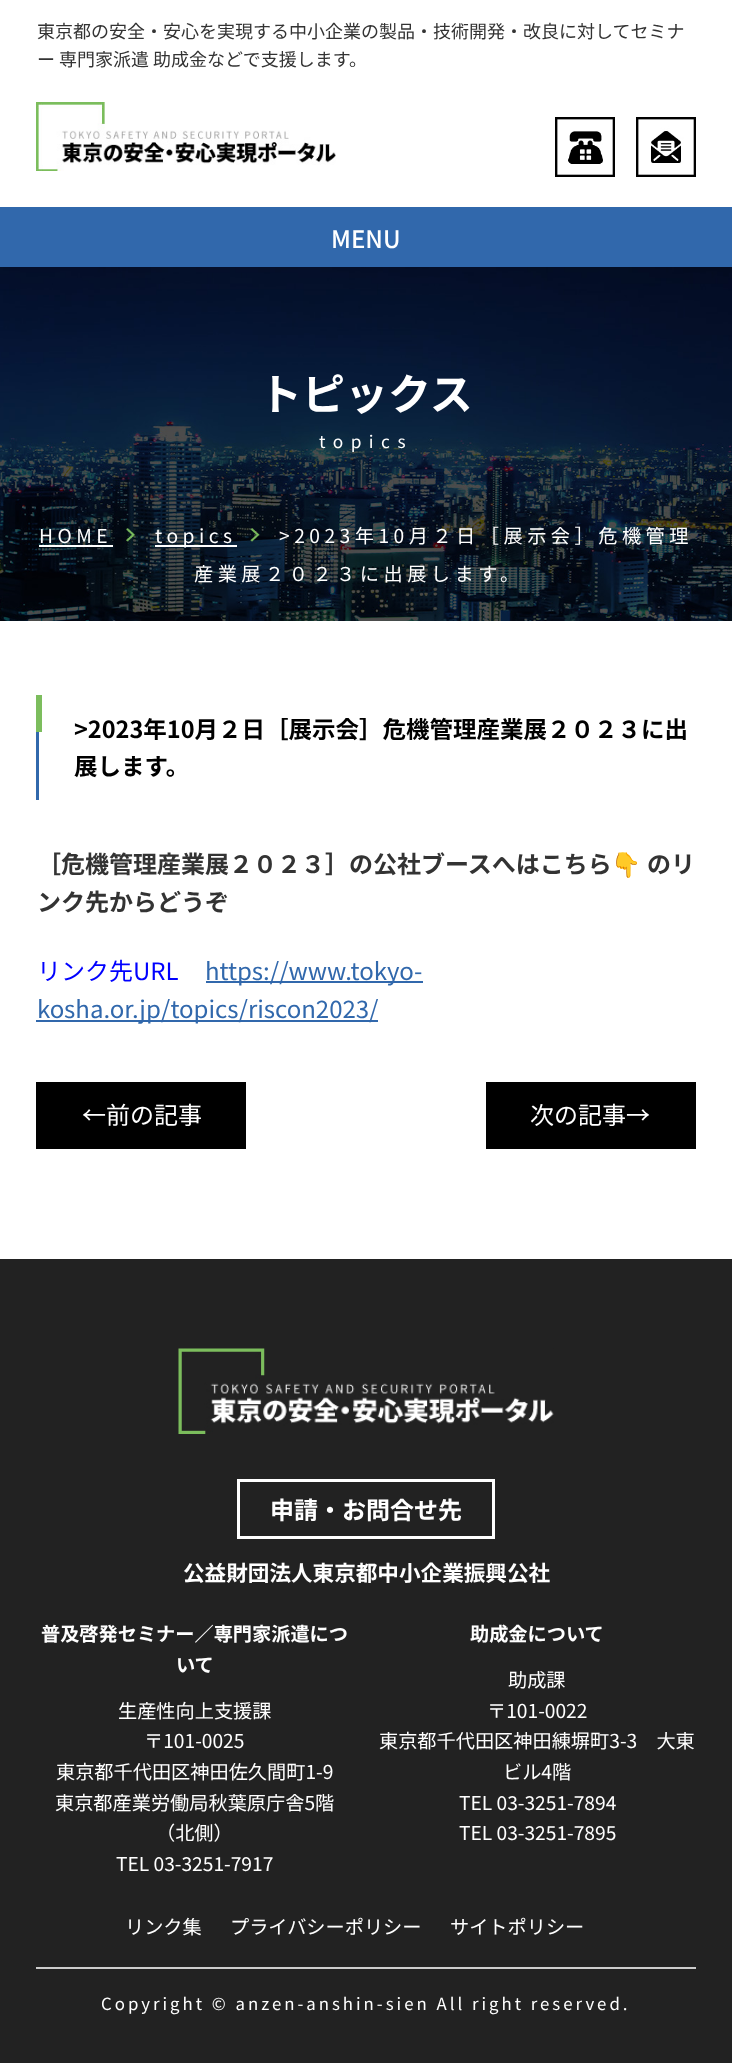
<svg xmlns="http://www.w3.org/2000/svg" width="732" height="2063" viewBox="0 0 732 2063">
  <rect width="100%" height="100%" fill="#ffffff"/>
  <text x="37" y="38" font-family="Noto Sans JP" font-size="18" fill="#333333">東京都の安全・安心を実現する中小企業の製品・技術開発・改良に対してセミナ</text>
  <text x="37" y="66" font-family="Noto Sans JP" font-size="18" fill="#333333">ー 専門家派遣 助成金などで支援します。</text>
  <image x="36" y="102" width="300" height="69" href="img1.png"/>
  <image x="555" y="117" width="60" height="60" href="img2.png"/>
  <image x="636" y="117" width="60" height="60" href="img3.png"/>
  <rect x="0" y="207" width="732" height="60" fill="#3168ac"/>
  <text x="331" y="248" font-family="Noto Sans JP" font-size="24" font-weight="500" fill="#ffffff">MENU</text>
  <image x="0" y="267" width="732" height="354" href="img4.png"/>
  <text x="259" y="410" font-family="Noto Sans JP" font-size="43" font-weight="bold" fill="#ffffff">トピックス</text>
  <text x="319" y="448" font-family="Noto Sans JP" font-size="17.25" letter-spacing="7.5" fill="#ffffff">topics</text>
  <text x="39" y="543" font-family="Noto Sans JP" font-size="19.2" letter-spacing="4.5" fill="#ffffff">HOME</text>
  <rect x="39" y="545" width="74" height="2" fill="#ffffff"/>
  <image x="126" y="528" width="9" height="14" href="img5.png"/>
  <rect x="155" y="545" width="82" height="2" fill="#ffffff"/>
  <text x="155" y="543" font-family="Noto Sans JP" font-size="19.2" letter-spacing="4.5" fill="#ffffff">topics</text>
  <image x="250" y="528" width="10" height="14" href="img6.png"/>
  <text x="279" y="543" font-family="Noto Sans JP" font-size="19.2" letter-spacing="4.5" fill="#ffffff">&gt;2023年10月２日［展示会］危機管理</text>
  <text x="194" y="581" font-family="Noto Sans JP" font-size="19.2" letter-spacing="4.5" fill="#ffffff">産業展２０２３に出展します。</text>
  <rect x="36" y="695" width="6" height="37" fill="#7cbd5d"/>
  <text x="74" y="738" font-family="Noto Sans JP" font-size="23.5" font-weight="bold" fill="#000000">&gt;2023年10月２日［展示会］危機管理産業展２０２３に出</text>
  <text x="74" y="775" font-family="Noto Sans JP" font-size="23.5" font-weight="bold" fill="#000000">展します。</text>
  <rect x="36" y="732" width="3" height="68" fill="#3168ac"/>
  <text x="37" y="873" font-family="Noto Sans JP" font-size="24" font-weight="bold" fill="#333333">［危機管理産業展２０２３］の公社ブースへはこちら</text>
  <text x="611" y="873" font-family="Noto Color Emoji" font-size="24" font-weight="bold" fill="#333333">👇</text>
  <text x="647" y="873" font-family="Noto Sans JP" font-size="24" font-weight="bold" fill="#333333">のリ</text>
  <text x="37" y="911" font-family="Noto Sans JP" font-size="24" font-weight="bold" fill="#333333">ンク先からどうぞ</text>
  <text x="37" y="980" font-family="Noto Sans JP" font-size="24" fill="#0000ff">リンク先URL</text>
  <rect x="206" y="981" width="217" height="2" fill="#3168ac"/>
  <text x="205" y="980" font-family="Noto Sans JP" font-size="24" fill="#3168ac">https://www.tokyo-</text>
  <rect x="36" y="1020" width="342" height="2" fill="#3168ac"/>
  <text x="37" y="1018" font-family="Noto Sans JP" font-size="24" fill="#3168ac">kosha.or.jp/topics/riscon2023/</text>
  <rect x="36" y="1082" width="210" height="67" fill="#000000"/>
  <text x="82" y="1124" font-family="Noto Sans JP" font-size="24" fill="#ffffff">←前の記事</text>
  <rect x="486" y="1082" width="210" height="67" fill="#000000"/>
  <text x="530" y="1124" font-family="Noto Sans JP" font-size="24" fill="#ffffff">次の記事→</text>
  <rect x="0" y="1259" width="732" height="804" fill="#222222"/>
  <image x="178" y="1348" width="376" height="86" href="img7.png"/>
  <rect x="238.5" y="1480.5" width="255" height="57" fill="none" stroke="#ffffff" stroke-width="3"/>
  <text x="270" y="1519" font-family="Noto Sans JP" font-size="24" font-weight="bold" fill="#ffffff">申請・お問合せ先</text>
  <text x="183" y="1581" font-family="Noto Sans JP" font-size="21.6" font-weight="bold" fill="#ffffff">公益財団法人東京都中小企業振興公社</text>
  <text x="41" y="1641" font-family="Noto Sans JP" font-size="19.2" font-weight="bold" fill="#ffffff">普及啓発セミナー／専門家派遣につ</text>
  <text x="176" y="1672" font-family="Noto Sans JP" font-size="19.2" font-weight="bold" fill="#ffffff">いて</text>
  <text x="118" y="1718" font-family="Noto Sans JP" font-size="19.2" fill="#ffffff">生産性向上支援課</text>
  <text x="144" y="1748" font-family="Noto Sans JP" font-size="19.2" fill="#ffffff">〒101-0025</text>
  <text x="56" y="1779" font-family="Noto Sans JP" font-size="19.2" fill="#ffffff">東京都千代田区神田佐久間町1-9</text>
  <text x="55" y="1810" font-family="Noto Sans JP" font-size="19.2" fill="#ffffff">東京都産業労働局秋葉原庁舎5階</text>
  <text x="156" y="1840" font-family="Noto Sans JP" font-size="19.2" fill="#ffffff">（北側）</text>
  <text x="116" y="1871" font-family="Noto Sans JP" font-size="19.2" fill="#ffffff">TEL 03-3251-7917</text>
  <text x="470" y="1641" font-family="Noto Sans JP" font-size="19.2" font-weight="bold" fill="#ffffff">助成金について</text>
  <text x="508" y="1687" font-family="Noto Sans JP" font-size="19.2" fill="#ffffff">助成課</text>
  <text x="487" y="1718" font-family="Noto Sans JP" font-size="19.2" fill="#ffffff">〒101-0022</text>
  <text x="379" y="1748" font-family="Noto Sans JP" font-size="19.2" fill="#ffffff">東京都千代田区神田練塀町3-3　大東</text>
  <text x="503" y="1779" font-family="Noto Sans JP" font-size="19.2" fill="#ffffff">ビル4階</text>
  <text x="459" y="1810" font-family="Noto Sans JP" font-size="19.2" fill="#ffffff">TEL 03-3251-7894</text>
  <text x="459" y="1840" font-family="Noto Sans JP" font-size="19.2" fill="#ffffff">TEL 03-3251-7895</text>
  <text x="125" y="1934" font-family="Noto Sans JP" font-size="19.2" fill="#ffffff">リンク集</text>
  <text x="230" y="1934" font-family="Noto Sans JP" font-size="19.2" fill="#ffffff">プライバシーポリシー</text>
  <text x="450" y="1934" font-family="Noto Sans JP" font-size="19.2" fill="#ffffff">サイトポリシー</text>
  <rect x="36" y="1967" width="660" height="2" fill="#cccccc"/>
  <text x="101" y="2010" font-family="Noto Sans JP" font-size="16.8" letter-spacing="3" fill="#ffffff">Copyright © anzen-anshin-sien All right reserved.</text>
</svg>
